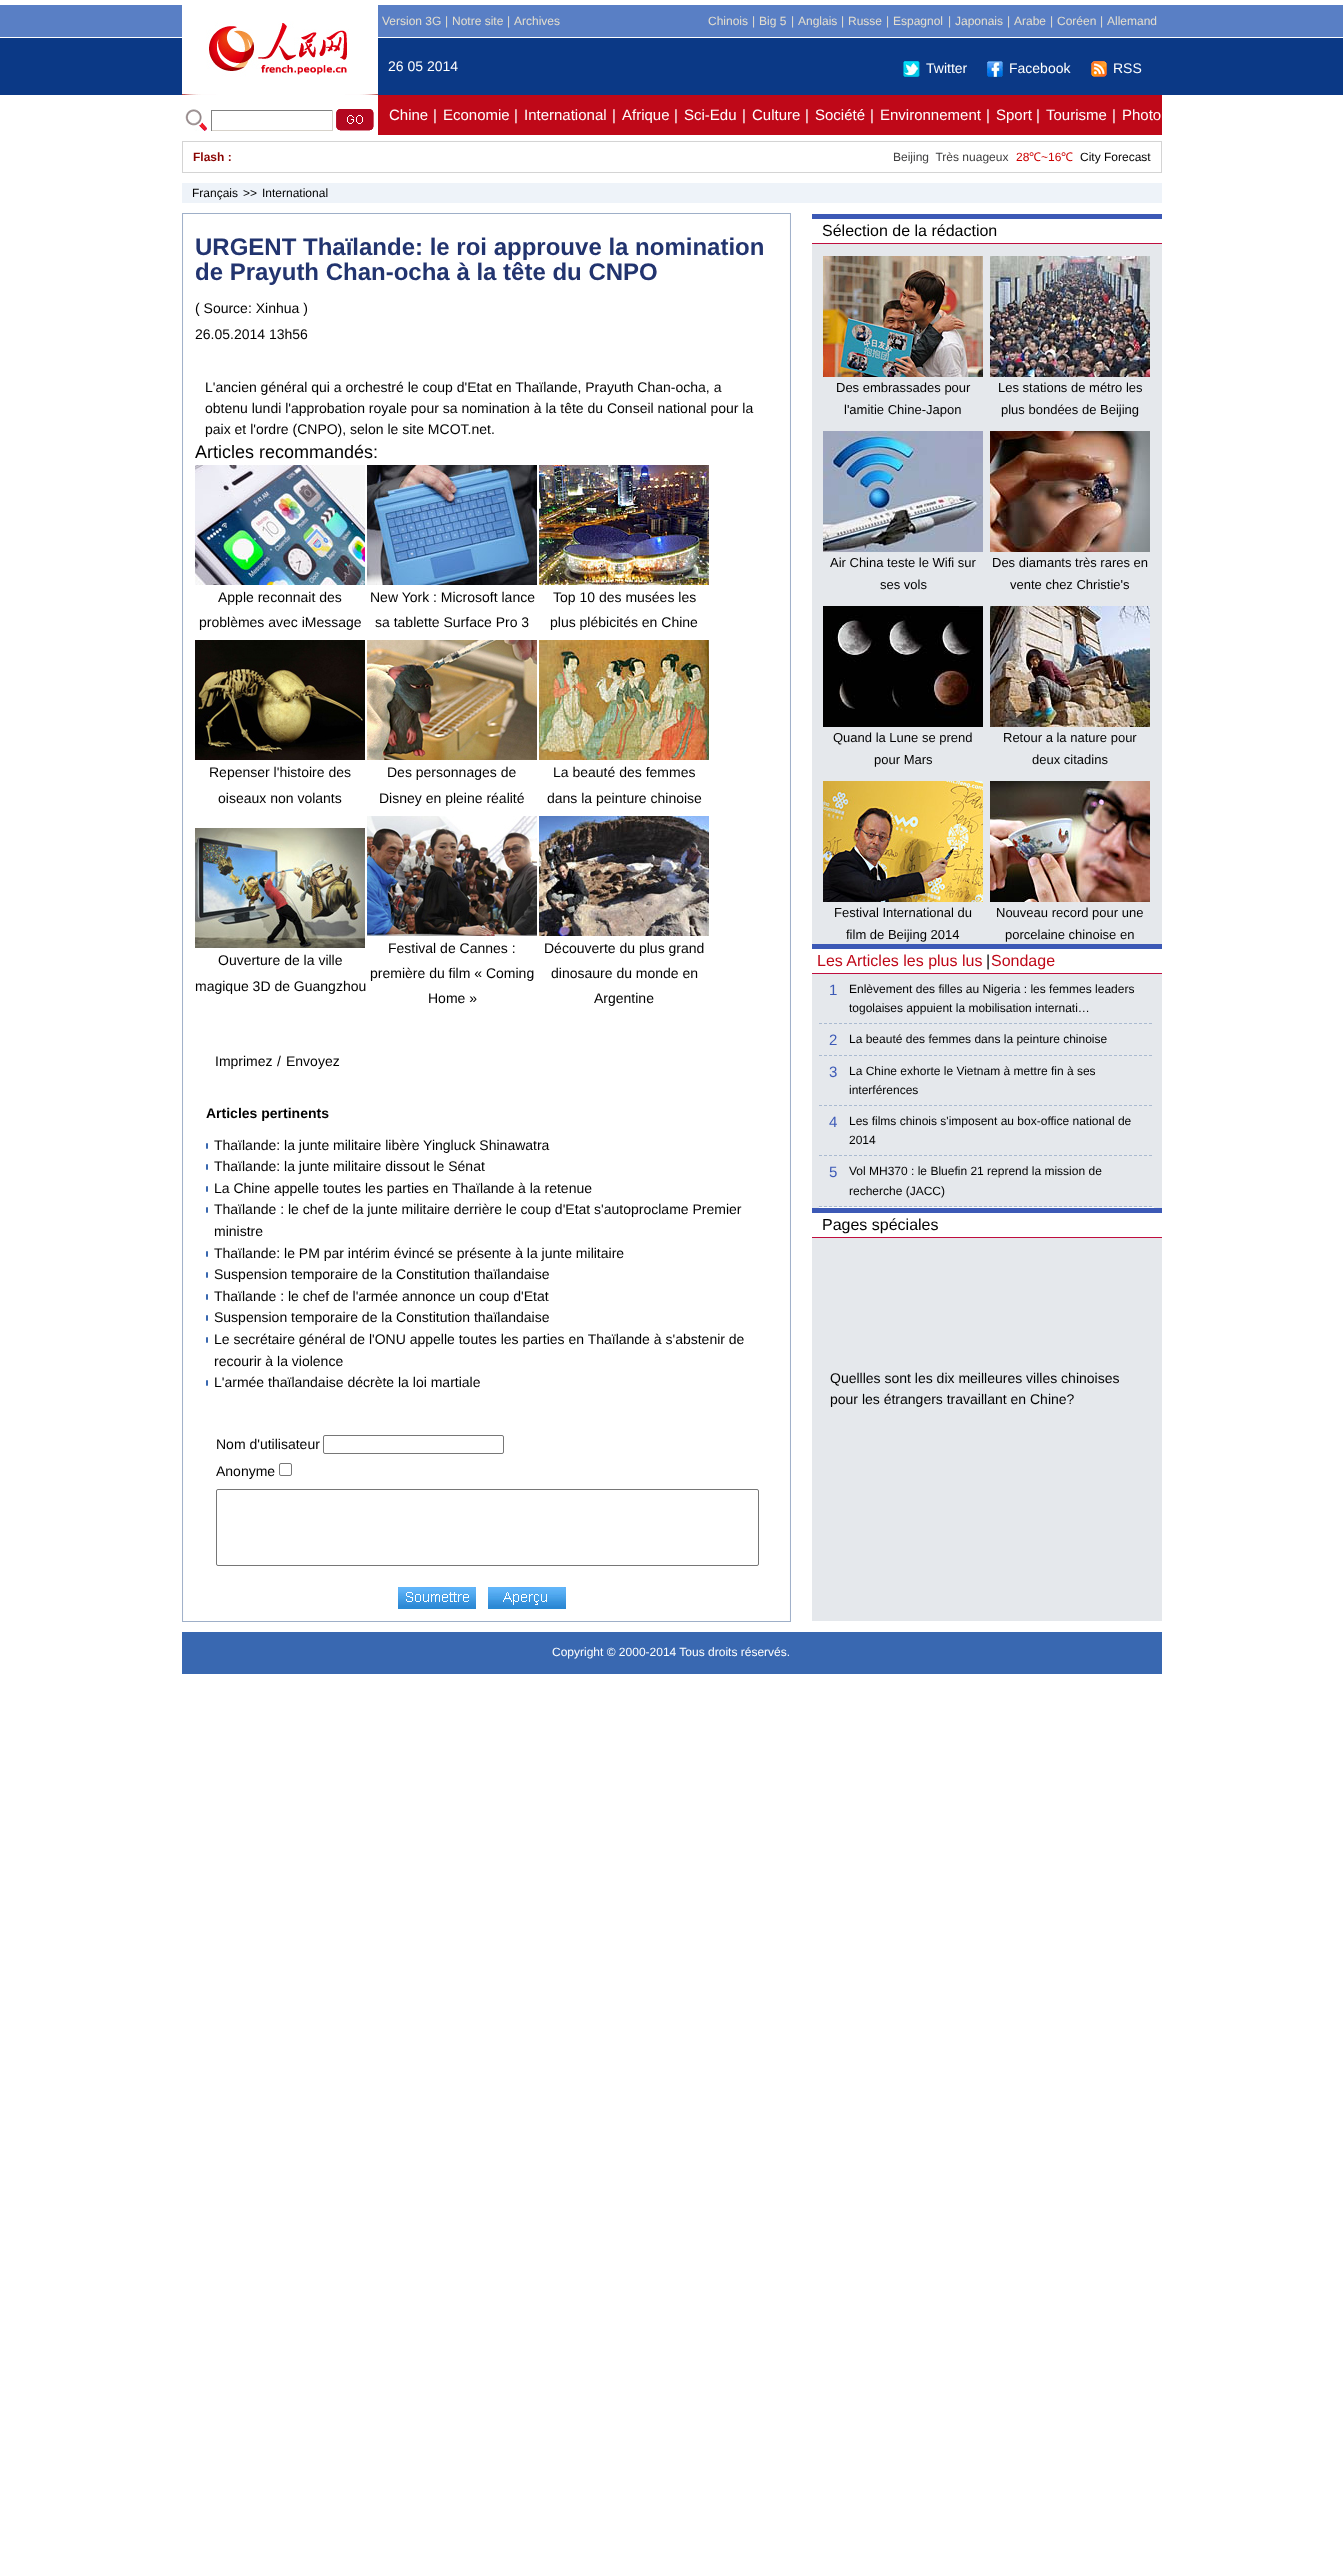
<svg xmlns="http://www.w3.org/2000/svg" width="1343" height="2569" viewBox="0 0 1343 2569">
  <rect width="100%" height="100%" fill="#ffffff"/>
  <image x="0" y="5" width="1343" height="90" href="img1.png"/>
  <image x="182" y="5" width="196" height="90" href="img2.png"/>
  <image x="185" y="109" width="22" height="22" href="img3.png"/>
  <rect x="211" y="110" width="122" height="1" fill="#818181"/>
  <rect x="332" y="110" width="1" height="21" fill="#d6d1c9"/>
  <rect x="211" y="130" width="122" height="1" fill="#d6d1c9"/>
  <rect x="211" y="110" width="1" height="21" fill="#818181"/>
  <image x="336" y="109" width="38" height="22" href="img4.png"/>
  <text x="382" y="25" font-family="Liberation Sans" font-size="12" fill="#e3decf">Version 3G</text>
  <text x="445" y="25" font-family="Liberation Sans" font-size="12" fill="#e3decf">|</text>
  <text x="452" y="25" font-family="Liberation Sans" font-size="12" fill="#e3decf">Notre site</text>
  <text x="507" y="25" font-family="Liberation Sans" font-size="12" fill="#e3decf">|</text>
  <text x="514" y="25" font-family="Liberation Sans" font-size="12" fill="#e3decf">Archives</text>
  <text x="708" y="25" font-family="Liberation Sans" font-size="12" fill="#e3decf">Chinois</text>
  <text x="752" y="25" font-family="Liberation Sans" font-size="12" fill="#e3decf">|</text>
  <text x="759" y="25" font-family="Liberation Sans" font-size="12" fill="#e3decf">Big 5</text>
  <text x="791" y="25" font-family="Liberation Sans" font-size="12" fill="#e3decf">|</text>
  <text x="798" y="25" font-family="Liberation Sans" font-size="12" fill="#e3decf">Anglais</text>
  <text x="841" y="25" font-family="Liberation Sans" font-size="12" fill="#e3decf">|</text>
  <text x="848" y="25" font-family="Liberation Sans" font-size="12" fill="#e3decf">Russe</text>
  <text x="886" y="25" font-family="Liberation Sans" font-size="12" fill="#e3decf">|</text>
  <text x="893" y="25" font-family="Liberation Sans" font-size="12" fill="#e3decf">Espagnol</text>
  <text x="948" y="25" font-family="Liberation Sans" font-size="12" fill="#e3decf">|</text>
  <text x="955" y="25" font-family="Liberation Sans" font-size="12" fill="#e3decf">Japonais</text>
  <text x="1007" y="25" font-family="Liberation Sans" font-size="12" fill="#e3decf">|</text>
  <text x="1014" y="25" font-family="Liberation Sans" font-size="12" fill="#e3decf">Arabe</text>
  <text x="1050" y="25" font-family="Liberation Sans" font-size="12" fill="#e3decf">|</text>
  <text x="1057" y="25" font-family="Liberation Sans" font-size="12" fill="#e3decf">Coréen</text>
  <text x="1100" y="25" font-family="Liberation Sans" font-size="12" fill="#e3decf">|</text>
  <text x="1107" y="25" font-family="Liberation Sans" font-size="12" fill="#e3decf">Allemand</text>
  <text x="388" y="71" font-family="Liberation Sans" font-size="14" fill="#fffffe">26 05 2014</text>
  <image x="903" y="61" width="17" height="16" href="img5.png"/>
  <text x="926" y="73" font-family="Liberation Sans" font-size="14" fill="#fffffe">Twitter</text>
  <image x="987" y="61" width="16" height="16" href="img6.png"/>
  <text x="1009" y="73" font-family="Liberation Sans" font-size="14" fill="#fffffe">Facebook</text>
  <image x="1091" y="61" width="16" height="16" href="img7.png"/>
  <text x="1113" y="73" font-family="Liberation Sans" font-size="14" fill="#fffffe">RSS</text>
  <rect x="378" y="95" width="784" height="40" fill="#bf0818"/>
  <text x="389" y="120" font-family="Liberation Sans" font-size="15" fill="#fffffe">Chine</text>
  <text x="433" y="120" font-family="Liberation Sans" font-size="15" fill="#fffffe">|</text>
  <text x="443" y="120" font-family="Liberation Sans" font-size="15" fill="#fffffe">Economie</text>
  <text x="514" y="120" font-family="Liberation Sans" font-size="15" fill="#fffffe">|</text>
  <text x="524" y="120" font-family="Liberation Sans" font-size="15" fill="#fffffe">International</text>
  <text x="612" y="120" font-family="Liberation Sans" font-size="15" fill="#fffffe">|</text>
  <text x="622" y="120" font-family="Liberation Sans" font-size="15" fill="#fffffe">Afrique</text>
  <text x="674" y="120" font-family="Liberation Sans" font-size="15" fill="#fffffe">|</text>
  <text x="684" y="120" font-family="Liberation Sans" font-size="15" fill="#fffffe">Sci-Edu</text>
  <text x="742" y="120" font-family="Liberation Sans" font-size="15" fill="#fffffe">|</text>
  <text x="752" y="120" font-family="Liberation Sans" font-size="15" fill="#fffffe">Culture</text>
  <text x="805" y="120" font-family="Liberation Sans" font-size="15" fill="#fffffe">|</text>
  <text x="815" y="120" font-family="Liberation Sans" font-size="15" fill="#fffffe">Société</text>
  <text x="870" y="120" font-family="Liberation Sans" font-size="15" fill="#fffffe">|</text>
  <text x="880" y="120" font-family="Liberation Sans" font-size="15" fill="#fffffe">Environnement</text>
  <text x="986" y="120" font-family="Liberation Sans" font-size="15" fill="#fffffe">|</text>
  <text x="996" y="120" font-family="Liberation Sans" font-size="15" fill="#fffffe">Sport</text>
  <text x="1036" y="120" font-family="Liberation Sans" font-size="15" fill="#fffffe">|</text>
  <text x="1046" y="120" font-family="Liberation Sans" font-size="15" fill="#fffffe">Tourisme</text>
  <text x="1112" y="120" font-family="Liberation Sans" font-size="15" fill="#fffffe">|</text>
  <text x="1122" y="120" font-family="Liberation Sans" font-size="15" fill="#fffffe">Photo</text>
  <rect x="182.5" y="141.5" width="979" height="31" fill="none" stroke="#d4d4d4"/>
  <text x="193" y="161" font-family="Liberation Sans" font-size="12" font-weight="bold" fill="#8a0402">Flash :</text>
  <text x="893" y="161" font-family="Liberation Sans" font-size="12" fill="#3e3e3f" xml:space="preserve">Beijing  Très nuageux</text>
  <text x="1016" y="161" font-family="Liberation Sans" font-size="12" fill="#cc0000">28</text>
  <text x="1029" y="161" font-family="Noto Sans" font-size="12" fill="#cc0000">℃</text>
  <text x="1041" y="161" font-family="Liberation Sans" font-size="12" fill="#cc0000">~16</text>
  <text x="1061" y="161" font-family="Noto Sans" font-size="12" fill="#cc0000">℃</text>
  <text x="1080" y="161" font-family="Liberation Sans" font-size="12" fill="#000000">City Forecast</text>
  <rect x="182" y="183" width="980" height="20" fill="#eef3f9"/>
  <text x="192" y="197" font-family="Liberation Sans" font-size="12" fill="#000000">Français</text>
  <text x="243" y="197" font-family="Liberation Sans" font-size="12" fill="#000000">&gt;&gt;</text>
  <text x="262" y="197" font-family="Liberation Sans" font-size="12" fill="#000000">International</text>
  <image x="182" y="213" width="980" height="1409" href="img8.png"/>
  <image x="183" y="213" width="979" height="1" href="img9.png"/>
  <text x="195" y="255" font-family="Liberation Sans" font-size="24" font-weight="bold" fill="#22346f">URGENT Thaïlande: le roi approuve la nomination</text>
  <text x="195" y="280" font-family="Liberation Sans" font-size="24" font-weight="bold" fill="#22346f">de Prayuth Chan-ocha à la tête du CNPO</text>
  <text x="195" y="313" font-family="Liberation Sans" font-size="14" fill="#000000">( Source: Xinhua )</text>
  <text x="195" y="339" font-family="Liberation Sans" font-size="14" fill="#000000">26.05.2014 13h56</text>
  <text x="205" y="392" font-family="Liberation Sans" font-size="14" fill="#000000">L'ancien général qui a orchestré le coup d'Etat en Thaïlande, Prayuth Chan-ocha, a</text>
  <text x="205" y="413" font-family="Liberation Sans" font-size="14" fill="#000000">obtenu lundi l'approbation royale pour sa nomination à la tête du Conseil national pour la</text>
  <text x="205" y="434" font-family="Liberation Sans" font-size="14" fill="#000000">paix et l'ordre (CNPO), selon le site MCOT.net.</text>
  <text x="195" y="458" font-family="Liberation Sans" font-size="18" fill="#000000">Articles recommandés:</text>
  <image x="195" y="465" width="170" height="120" href="img10.png"/>
  <text x="218" y="602" font-family="Liberation Sans" font-size="14" fill="#000000">Apple reconnait des</text>
  <text x="199" y="627" font-family="Liberation Sans" font-size="14" fill="#000000">problèmes avec iMessage</text>
  <image x="367" y="465" width="170" height="120" href="img11.png"/>
  <text x="370" y="602" font-family="Liberation Sans" font-size="14" fill="#000000">New York : Microsoft lance</text>
  <text x="375" y="627" font-family="Liberation Sans" font-size="14" fill="#000000">sa tablette Surface Pro 3</text>
  <image x="539" y="465" width="170" height="120" href="img12.png"/>
  <text x="553" y="602" font-family="Liberation Sans" font-size="14" fill="#000000">Top 10 des musées les</text>
  <text x="550" y="627" font-family="Liberation Sans" font-size="14" fill="#000000">plus plébicités en Chine</text>
  <image x="195" y="640" width="170" height="120" href="img13.png"/>
  <text x="209" y="777" font-family="Liberation Sans" font-size="14" fill="#000000">Repenser l'histoire des</text>
  <text x="218" y="803" font-family="Liberation Sans" font-size="14" fill="#000000">oiseaux non volants</text>
  <image x="367" y="640" width="170" height="120" href="img14.png"/>
  <text x="387" y="777" font-family="Liberation Sans" font-size="14" fill="#000000">Des personnages de</text>
  <text x="379" y="803" font-family="Liberation Sans" font-size="14" fill="#000000">Disney en pleine réalité</text>
  <image x="539" y="640" width="170" height="120" href="img15.png"/>
  <text x="553" y="777" font-family="Liberation Sans" font-size="14" fill="#000000">La beauté des femmes</text>
  <text x="547" y="803" font-family="Liberation Sans" font-size="14" fill="#000000">dans la peinture chinoise</text>
  <image x="195" y="828" width="170" height="120" href="img16.png"/>
  <text x="218" y="965" font-family="Liberation Sans" font-size="14" fill="#000000">Ouverture de la ville</text>
  <text x="195" y="991" font-family="Liberation Sans" font-size="14" fill="#000000">magique 3D de Guangzhou</text>
  <image x="367" y="816" width="170" height="120" href="img17.png"/>
  <text x="388" y="953" font-family="Liberation Sans" font-size="14" fill="#000000">Festival de Cannes :</text>
  <text x="370" y="978" font-family="Liberation Sans" font-size="14" fill="#000000">première du film « Coming</text>
  <text x="428" y="1003" font-family="Liberation Sans" font-size="14" fill="#000000">Home »</text>
  <image x="539" y="816" width="170" height="120" href="img18.png"/>
  <text x="544" y="953" font-family="Liberation Sans" font-size="14" fill="#000000">Découverte du plus grand</text>
  <text x="551" y="978" font-family="Liberation Sans" font-size="14" fill="#000000">dinosaure du monde en</text>
  <text x="594" y="1003" font-family="Liberation Sans" font-size="14" fill="#000000">Argentine</text>
  <text x="215" y="1066" font-family="Liberation Sans" font-size="14" fill="#000000">Imprimez</text>
  <text x="277" y="1066" font-family="Liberation Sans" font-size="14" fill="#000000">/</text>
  <text x="286" y="1066" font-family="Liberation Sans" font-size="14" fill="#000000">Envoyez</text>
  <text x="206" y="1118" font-family="Liberation Sans" font-size="14" font-weight="bold" fill="#000000">Articles pertinents</text>
  <image x="206" y="1143" width="2" height="6" href="img19.png"/>
  <text x="214" y="1150" font-family="Liberation Sans" font-size="14" fill="#000000">Thaïlande: la junte militaire libère Yingluck Shinawatra</text>
  <image x="206" y="1164" width="2" height="6" href="img19.png"/>
  <text x="214" y="1171" font-family="Liberation Sans" font-size="14" fill="#000000">Thaïlande: la junte militaire dissout le Sénat</text>
  <image x="206" y="1186" width="2" height="6" href="img19.png"/>
  <text x="214" y="1193" font-family="Liberation Sans" font-size="14" fill="#000000">La Chine appelle toutes les parties en Thaïlande à la retenue</text>
  <image x="206" y="1207" width="2" height="6" href="img19.png"/>
  <text x="214" y="1214" font-family="Liberation Sans" font-size="14" fill="#000000">Thaïlande : le chef de la junte militaire derrière le coup d'Etat s'autoproclame Premier</text>
  <text x="214" y="1236" font-family="Liberation Sans" font-size="14" fill="#000000">ministre</text>
  <image x="206" y="1251" width="2" height="6" href="img19.png"/>
  <text x="214" y="1258" font-family="Liberation Sans" font-size="14" fill="#000000">Thaïlande: le PM par intérim évincé se présente à la junte militaire</text>
  <image x="206" y="1272" width="2" height="6" href="img19.png"/>
  <text x="214" y="1279" font-family="Liberation Sans" font-size="14" fill="#000000">Suspension temporaire de la Constitution thaïlandaise</text>
  <image x="206" y="1294" width="2" height="6" href="img19.png"/>
  <text x="214" y="1301" font-family="Liberation Sans" font-size="14" fill="#000000">Thaïlande : le chef de l'armée annonce un coup d'Etat</text>
  <image x="206" y="1315" width="2" height="6" href="img19.png"/>
  <text x="214" y="1322" font-family="Liberation Sans" font-size="14" fill="#000000">Suspension temporaire de la Constitution thaïlandaise</text>
  <image x="206" y="1337" width="2" height="6" href="img19.png"/>
  <text x="214" y="1344" font-family="Liberation Sans" font-size="14" fill="#000000">Le secrétaire général de l'ONU appelle toutes les parties en Thaïlande à s'abstenir de</text>
  <text x="214" y="1366" font-family="Liberation Sans" font-size="14" fill="#000000">recourir à la violence</text>
  <image x="206" y="1380" width="2" height="6" href="img19.png"/>
  <text x="214" y="1387" font-family="Liberation Sans" font-size="14" fill="#000000">L'armée thaïlandaise décrète la loi martiale</text>
  <text x="216" y="1449" font-family="Liberation Sans" font-size="14" fill="#000000">Nom d'utilisateur</text>
  <rect x="323.5" y="1435.5" width="180" height="18" rx="1.5" fill="none" stroke="#767676"/>
  <text x="216" y="1476" font-family="Liberation Sans" font-size="14" fill="#000000">Anonyme</text>
  <rect x="279.5" y="1463.5" width="12" height="12" rx="1.5" fill="none" stroke="#767676"/>
  <rect x="216.5" y="1489.5" width="542" height="76" rx="1.5" fill="none" stroke="#767676"/>
  <image x="398" y="1587" width="78" height="22" href="img20.png"/>
  <image x="488" y="1587" width="78" height="22" href="img21.png"/>
  <rect x="812" y="219" width="350" height="24" fill="#ffffff"/>
  <rect x="812" y="214" width="350" height="5" fill="#3c59b6"/>
  <rect x="812" y="243" width="350" height="1" fill="#c00d3e"/>
  <text x="822" y="236" font-family="Liberation Sans" font-size="16" fill="#000000">Sélection de la rédaction</text>
  <image x="823" y="256" width="160" height="121" href="img22.png"/>
  <text x="836" y="392" font-family="Liberation Sans" font-size="13" fill="#000000">Des embrassades pour</text>
  <text x="844" y="414" font-family="Liberation Sans" font-size="13" fill="#000000">l'amitie Chine-Japon</text>
  <image x="990" y="256" width="160" height="121" href="img23.png"/>
  <text x="998" y="392" font-family="Liberation Sans" font-size="13" fill="#000000">Les stations de métro les</text>
  <text x="1001" y="414" font-family="Liberation Sans" font-size="13" fill="#000000">plus bondées de Beijing</text>
  <image x="823" y="431" width="160" height="121" href="img24.png"/>
  <text x="830" y="567" font-family="Liberation Sans" font-size="13" fill="#000000">Air China teste le Wifi sur</text>
  <text x="880" y="589" font-family="Liberation Sans" font-size="13" fill="#000000">ses vols</text>
  <image x="990" y="431" width="160" height="121" href="img25.png"/>
  <text x="992" y="567" font-family="Liberation Sans" font-size="13" fill="#000000">Des diamants très rares en</text>
  <text x="1010" y="589" font-family="Liberation Sans" font-size="13" fill="#000000">vente chez Christie's</text>
  <image x="823" y="606" width="160" height="121" href="img26.png"/>
  <text x="833" y="742" font-family="Liberation Sans" font-size="13" fill="#000000">Quand la Lune se prend</text>
  <text x="874" y="764" font-family="Liberation Sans" font-size="13" fill="#000000">pour Mars</text>
  <image x="990" y="606" width="160" height="121" href="img27.png"/>
  <text x="1003" y="742" font-family="Liberation Sans" font-size="13" fill="#000000">Retour a la nature pour</text>
  <text x="1032" y="764" font-family="Liberation Sans" font-size="13" fill="#000000">deux citadins</text>
  <image x="823" y="781" width="160" height="121" href="img28.png"/>
  <text x="834" y="917" font-family="Liberation Sans" font-size="13" fill="#000000">Festival International du</text>
  <text x="846" y="939" font-family="Liberation Sans" font-size="13" fill="#000000">film de Beijing 2014</text>
  <image x="990" y="781" width="160" height="121" href="img29.png"/>
  <text x="996" y="917" font-family="Liberation Sans" font-size="13" fill="#000000">Nouveau record pour une</text>
  <text x="1005" y="939" font-family="Liberation Sans" font-size="13" fill="#000000">porcelaine chinoise en</text>
  <rect x="812" y="949" width="350" height="24" fill="#ffffff"/>
  <rect x="812" y="944" width="350" height="5" fill="#3c59b6"/>
  <rect x="812" y="973" width="350" height="1" fill="#c00d3e"/>
  <text x="817" y="966" font-family="Liberation Sans" font-size="16" fill="#bf0818">Les Articles les plus lus</text>
  <text x="986" y="966" font-family="Liberation Sans" font-size="16" fill="#000000">|</text>
  <text x="991" y="966" font-family="Liberation Sans" font-size="16" fill="#bf0818">Sondage</text>
  <rect x="819" y="1207" width="335" height="1" fill="#fffffd"/>
  <image x="819" y="1023" width="333" height="1" href="img30.png"/>
  <text x="829" y="995" font-family="Liberation Sans" font-size="15" fill="#3c59b6">1</text>
  <text x="849" y="993" font-family="Liberation Sans" font-size="12" fill="#000000">Enlèvement des filles au Nigeria : les femmes leaders</text>
  <text x="849" y="1012" font-family="Liberation Sans" font-size="12" fill="#000000">togolaises appuient la mobilisation internati…</text>
  <image x="819" y="1055" width="333" height="1" href="img30.png"/>
  <text x="829" y="1045" font-family="Liberation Sans" font-size="15" fill="#3c59b6">2</text>
  <text x="849" y="1043" font-family="Liberation Sans" font-size="12" fill="#000000">La beauté des femmes dans la peinture chinoise</text>
  <image x="819" y="1105" width="333" height="1" href="img30.png"/>
  <text x="829" y="1077" font-family="Liberation Sans" font-size="15" fill="#3c59b6">3</text>
  <text x="849" y="1075" font-family="Liberation Sans" font-size="12" fill="#000000">La Chine exhorte le Vietnam à mettre fin à ses</text>
  <text x="849" y="1094" font-family="Liberation Sans" font-size="12" fill="#000000">interférences</text>
  <image x="819" y="1155" width="333" height="1" href="img30.png"/>
  <text x="829" y="1127" font-family="Liberation Sans" font-size="15" fill="#3c59b6">4</text>
  <text x="849" y="1125" font-family="Liberation Sans" font-size="12" fill="#000000">Les films chinois s'imposent au box-office national de</text>
  <text x="849" y="1144" font-family="Liberation Sans" font-size="12" fill="#000000">2014</text>
  <image x="819" y="1206" width="333" height="1" href="img30.png"/>
  <text x="829" y="1177" font-family="Liberation Sans" font-size="15" fill="#3c59b6">5</text>
  <text x="849" y="1175" font-family="Liberation Sans" font-size="12" fill="#000000">Vol MH370 : le Bluefin 21 reprend la mission de</text>
  <text x="849" y="1195" font-family="Liberation Sans" font-size="12" fill="#000000">recherche (JACC)</text>
  <rect x="812" y="1213" width="350" height="24" fill="#ffffff"/>
  <rect x="812" y="1208" width="350" height="5" fill="#3c59b6"/>
  <rect x="812" y="1237" width="350" height="1" fill="#c00d3e"/>
  <text x="822" y="1230" font-family="Liberation Sans" font-size="16" fill="#000000">Pages spéciales</text>
  <text x="830" y="1383" font-family="Liberation Sans" font-size="14" fill="#000000">Quellles sont les dix meilleures villes chinoises</text>
  <text x="830" y="1404" font-family="Liberation Sans" font-size="14" fill="#000000">pour les étrangers travaillant en Chine?</text>
  <image x="183" y="1621" width="979" height="1" href="img9.png"/>
  <rect x="182" y="1632" width="980" height="42" fill="#3968b1"/>
  <text x="552" y="1656" font-family="Liberation Sans" font-size="12" fill="#fffffe">Copyright © 2000-2014 Tous droits réservés.</text>
</svg>
